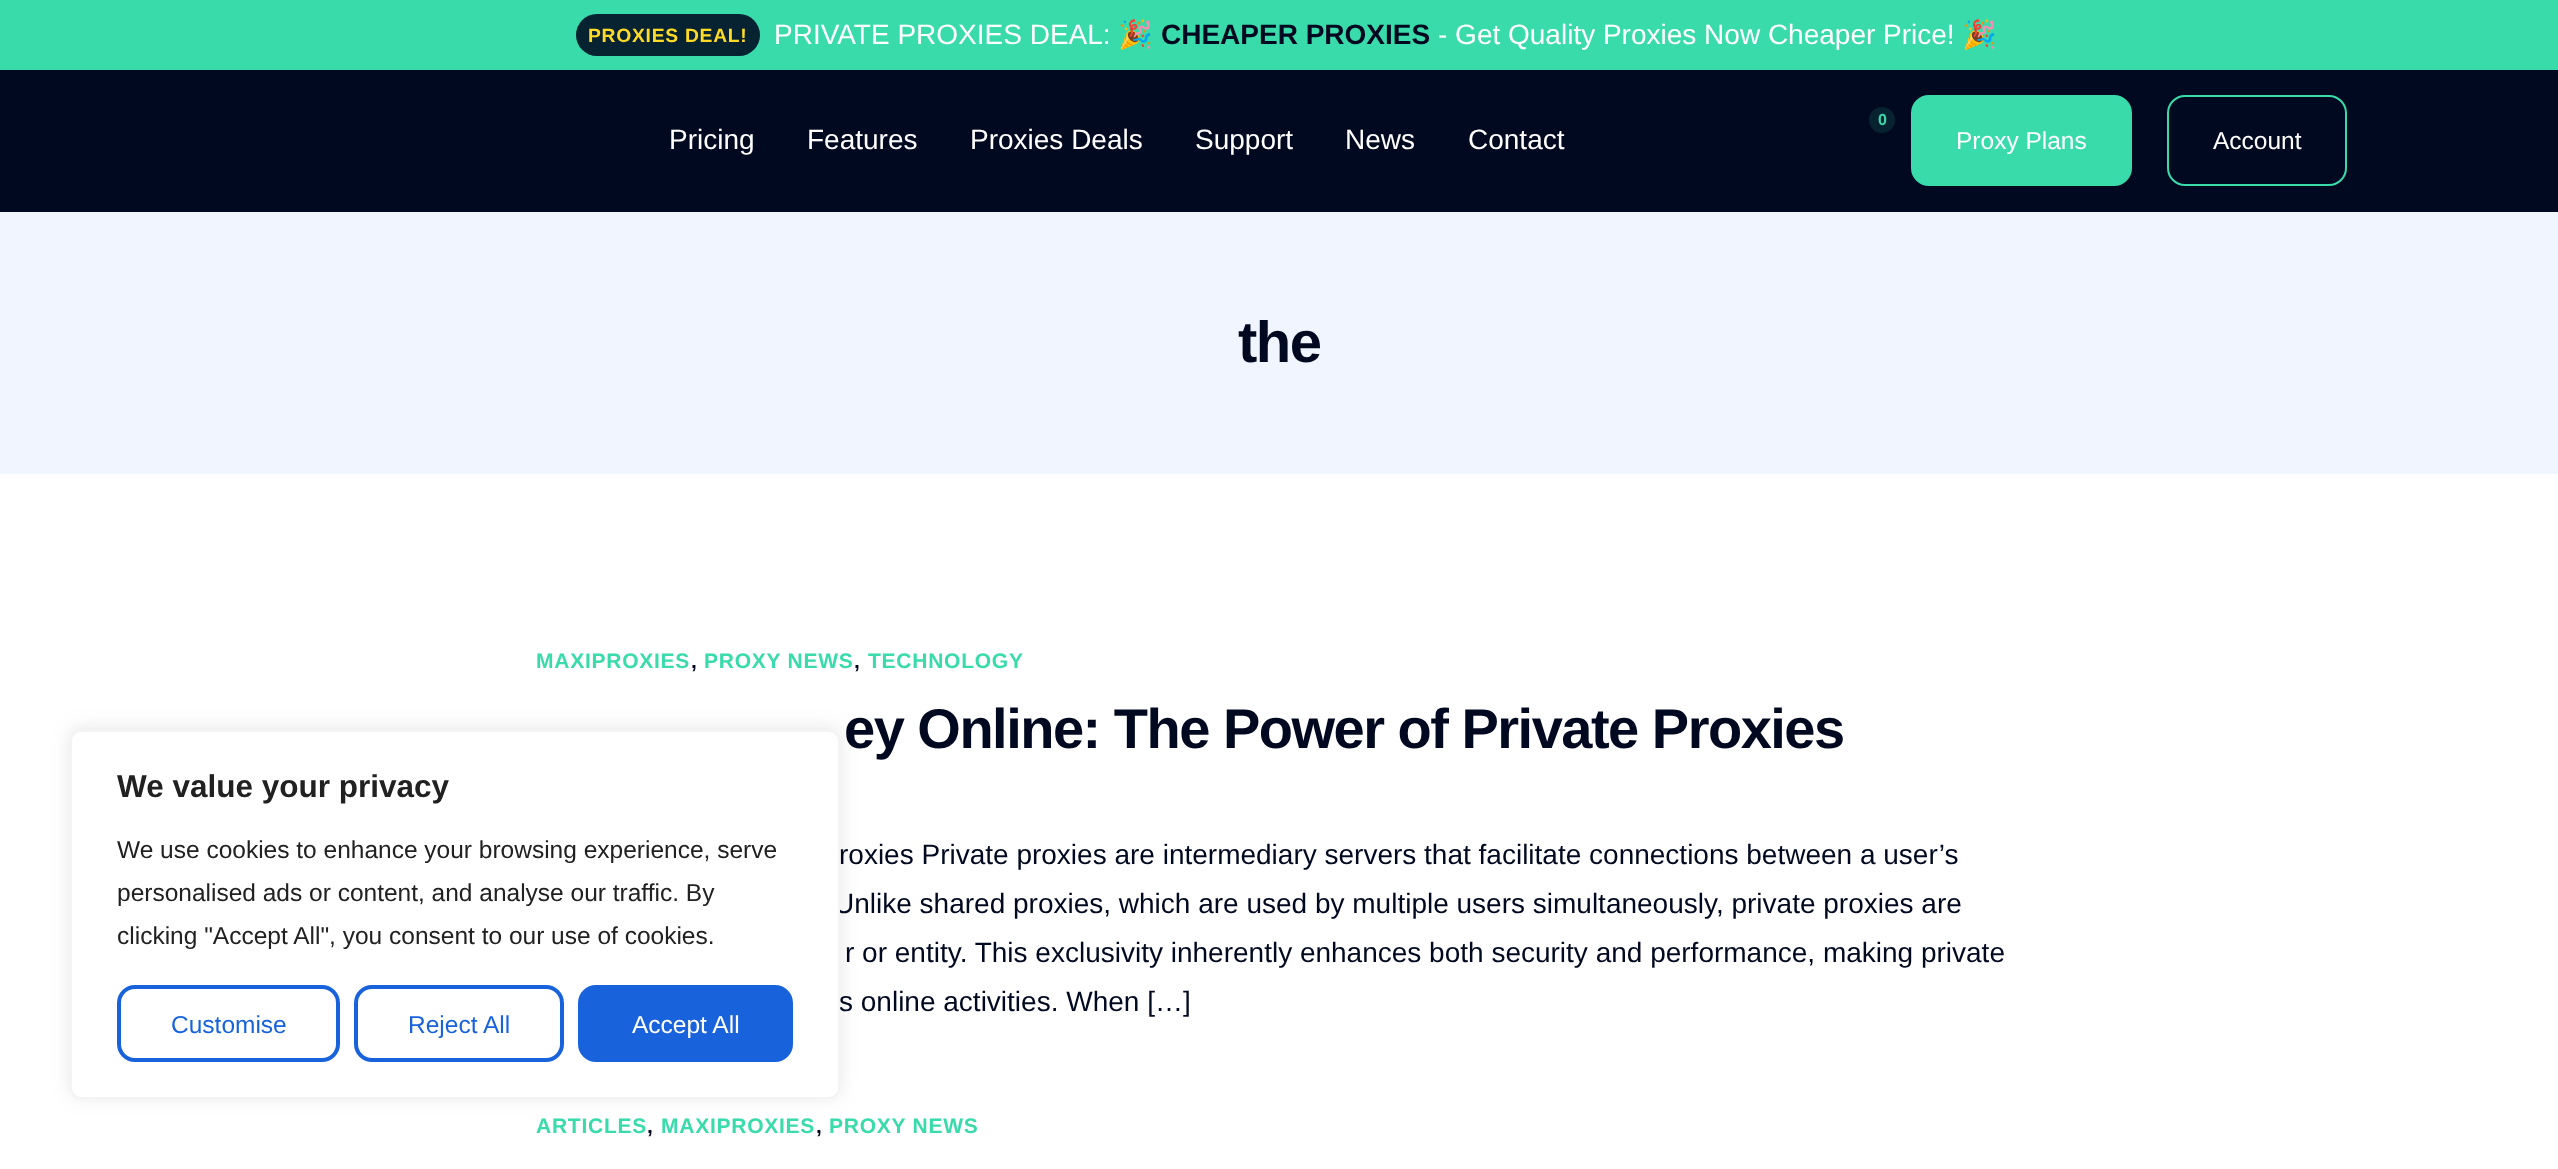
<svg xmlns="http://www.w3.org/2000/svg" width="2558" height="1169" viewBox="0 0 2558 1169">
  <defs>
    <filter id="blur1" x="-50%" y="-200%" width="200%" height="500%"><feGaussianBlur stdDeviation="9"/></filter>
  </defs>
  <rect width="100%" height="100%" fill="#ffffff"/>
  <rect x="70" y="728" width="770" height="369" rx="11" fill="#acabab" fill-opacity="0.3" filter="url(#blur1)"/>
  <text x="834" y="913" font-family="Liberation Sans" font-size="28" fill="#000920">Unlike shared proxies, which are used by multiple users simultaneously, private proxies are</text>
  <text x="839" y="1011" font-family="Liberation Sans" font-size="28" fill="#000920">s online activities. When […]</text>
  <rect x="71" y="731" width="768" height="367" rx="10" fill="#ffffff" stroke="#f4f4f4" stroke-width="2"/>
  <text x="117" y="797" font-family="Liberation Sans" font-size="31.5" font-weight="bold" fill="#212121">We value your privacy</text>
  <text x="117" y="858" font-family="Liberation Sans" font-size="24.5" fill="#212121">We use cookies to enhance your browsing experience, serve</text>
  <text x="117" y="901" font-family="Liberation Sans" font-size="24.5" fill="#212121">personalised ads or content, and analyse our traffic. By</text>
  <text x="117" y="944" font-family="Liberation Sans" font-size="24.5" fill="#212121">clicking "Accept All", you consent to our use of cookies.</text>
  <rect x="119" y="987" width="219" height="73" rx="16" fill="none" stroke="#1863dc" stroke-width="4"/>
  <text x="171" y="1033" font-family="Liberation Sans" font-size="24.5" fill="#1863dc">Customise</text>
  <rect x="356" y="987" width="206" height="73" rx="16" fill="none" stroke="#1863dc" stroke-width="4"/>
  <text x="408" y="1033" font-family="Liberation Sans" font-size="24.5" fill="#1863dc">Reject All</text>
  <rect x="580" y="987" width="211" height="73" rx="16" fill="#1863dc" stroke="#1863dc" stroke-width="4"/>
  <text x="632" y="1033" font-family="Liberation Sans" font-size="24.5" fill="#ffffff">Accept All</text>
  <rect x="0" y="0" width="2558" height="70" fill="#39dbaa"/>
  <rect x="576" y="14" width="184" height="42" rx="21" fill="#000920"/>
  <rect x="576" y="14" width="184" height="42" rx="21" fill="#39dbaa" fill-opacity="0.12"/>
  <text x="588" y="42" font-family="Liberation Sans" font-size="19.25" font-weight="bold" letter-spacing="0.75" fill="#ffdb25">PROXIES DEAL!</text>
  <text x="774" y="44" font-family="Liberation Sans" font-size="28" fill="#ffffff">PRIVATE PROXIES DEAL:</text>
  <text x="1118" y="44" font-family="Noto Color Emoji" font-size="28" fill="#ffffff">🎉</text>
  <text x="1161" y="44" font-family="Liberation Sans" font-size="28" font-weight="bold" fill="#000920">CHEAPER PROXIES</text>
  <text x="1438" y="44" font-family="Liberation Sans" font-size="28" fill="#ffffff">- Get Quality Proxies Now Cheaper Price!</text>
  <text x="1962" y="44" font-family="Noto Color Emoji" font-size="28" fill="#ffffff">🎉</text>
  <rect x="0" y="70" width="2558" height="140" fill="#000920"/>
  <rect x="0" y="210" width="2558" height="2" fill="#020923"/>
  <text x="669" y="149" font-family="Liberation Sans" font-size="28" fill="#ffffff">Pricing</text>
  <text x="807" y="149" font-family="Liberation Sans" font-size="28" fill="#ffffff">Features</text>
  <text x="970" y="149" font-family="Liberation Sans" font-size="28" fill="#ffffff">Proxies Deals</text>
  <text x="1195" y="149" font-family="Liberation Sans" font-size="28" fill="#ffffff">Support</text>
  <text x="1345" y="149" font-family="Liberation Sans" font-size="28" fill="#ffffff">News</text>
  <text x="1468" y="149" font-family="Liberation Sans" font-size="28" fill="#ffffff">Contact</text>
  <circle cx="1882" cy="120" r="13" fill="#39dbaa" fill-opacity="0.12"/>
  <text x="1878" y="125" font-family="Liberation Sans" font-size="16" font-weight="bold" fill="#39dbaa">0</text>
  <rect x="1912" y="96" width="219" height="89" rx="17" fill="#39dbaa" stroke="#39dbaa" stroke-width="2"/>
  <text x="1956" y="149" font-family="Liberation Sans" font-size="24.5" fill="#ffffff">Proxy Plans</text>
  <rect x="2168" y="96" width="178" height="89" rx="17" fill="none" stroke="#39dbaa" stroke-width="2"/>
  <text x="2213" y="149" font-family="Liberation Sans" font-size="24.5" fill="#ffffff">Account</text>
  <rect x="0" y="212" width="2558" height="262" fill="#f1f5ff"/>
  <text x="1238" y="362" font-family="Liberation Sans" font-size="58" font-weight="bold" letter-spacing="-1.5" fill="#000920">the</text>
  <text x="536" y="668" font-family="Liberation Sans" font-size="21" font-weight="bold" letter-spacing="0.75" fill="#39dbaa">MAXIPROXIES</text>
  <text x="691" y="668" font-family="Liberation Sans" font-size="21" font-weight="bold" letter-spacing="0.75" fill="#000920">,</text>
  <text x="704" y="668" font-family="Liberation Sans" font-size="21" font-weight="bold" letter-spacing="0.75" fill="#39dbaa">PROXY NEWS</text>
  <text x="854" y="668" font-family="Liberation Sans" font-size="21" font-weight="bold" letter-spacing="0.75" fill="#000920">,</text>
  <text x="868" y="668" font-family="Liberation Sans" font-size="21" font-weight="bold" letter-spacing="0.75" fill="#39dbaa">TECHNOLOGY</text>
  <text x="844" y="748" font-family="Liberation Sans" font-size="56" font-weight="bold" letter-spacing="-1.5" fill="#000920">ey Online: The Power of Private Proxies</text>
  <text x="839" y="864" font-family="Liberation Sans" font-size="28" fill="#000920">roxies Private proxies are intermediary servers that facilitate connections between a user’s</text>
  <text x="845" y="962" font-family="Liberation Sans" font-size="28" fill="#000920">r or entity. This exclusivity inherently enhances both security and performance, making private</text>
  <text x="536" y="1133" font-family="Liberation Sans" font-size="21" font-weight="bold" letter-spacing="0.75" fill="#39dbaa">ARTICLES</text>
  <text x="647" y="1133" font-family="Liberation Sans" font-size="21" font-weight="bold" letter-spacing="0.75" fill="#000920">,</text>
  <text x="661" y="1133" font-family="Liberation Sans" font-size="21" font-weight="bold" letter-spacing="0.75" fill="#39dbaa">MAXIPROXIES</text>
  <text x="816" y="1133" font-family="Liberation Sans" font-size="21" font-weight="bold" letter-spacing="0.75" fill="#000920">,</text>
  <text x="829" y="1133" font-family="Liberation Sans" font-size="21" font-weight="bold" letter-spacing="0.75" fill="#39dbaa">PROXY NEWS</text>
</svg>
